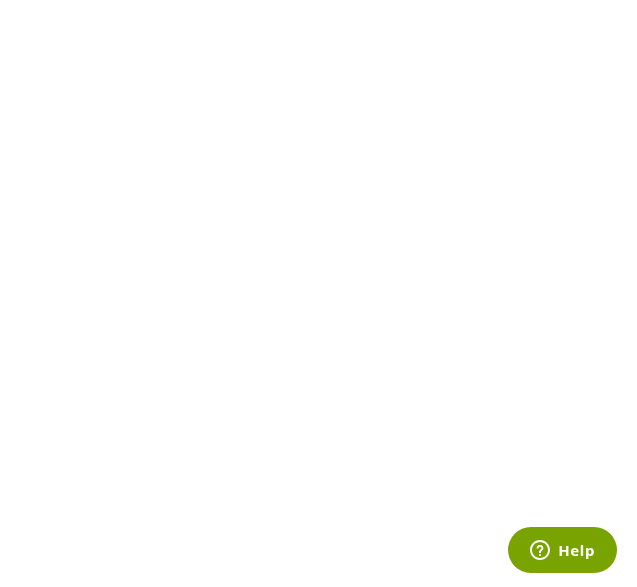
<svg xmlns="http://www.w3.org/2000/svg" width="637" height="587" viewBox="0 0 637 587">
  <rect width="100%" height="100%" fill="#ffffff"/>
  <image x="508" y="527" width="109" height="46" href="img1.png"/>
</svg>
